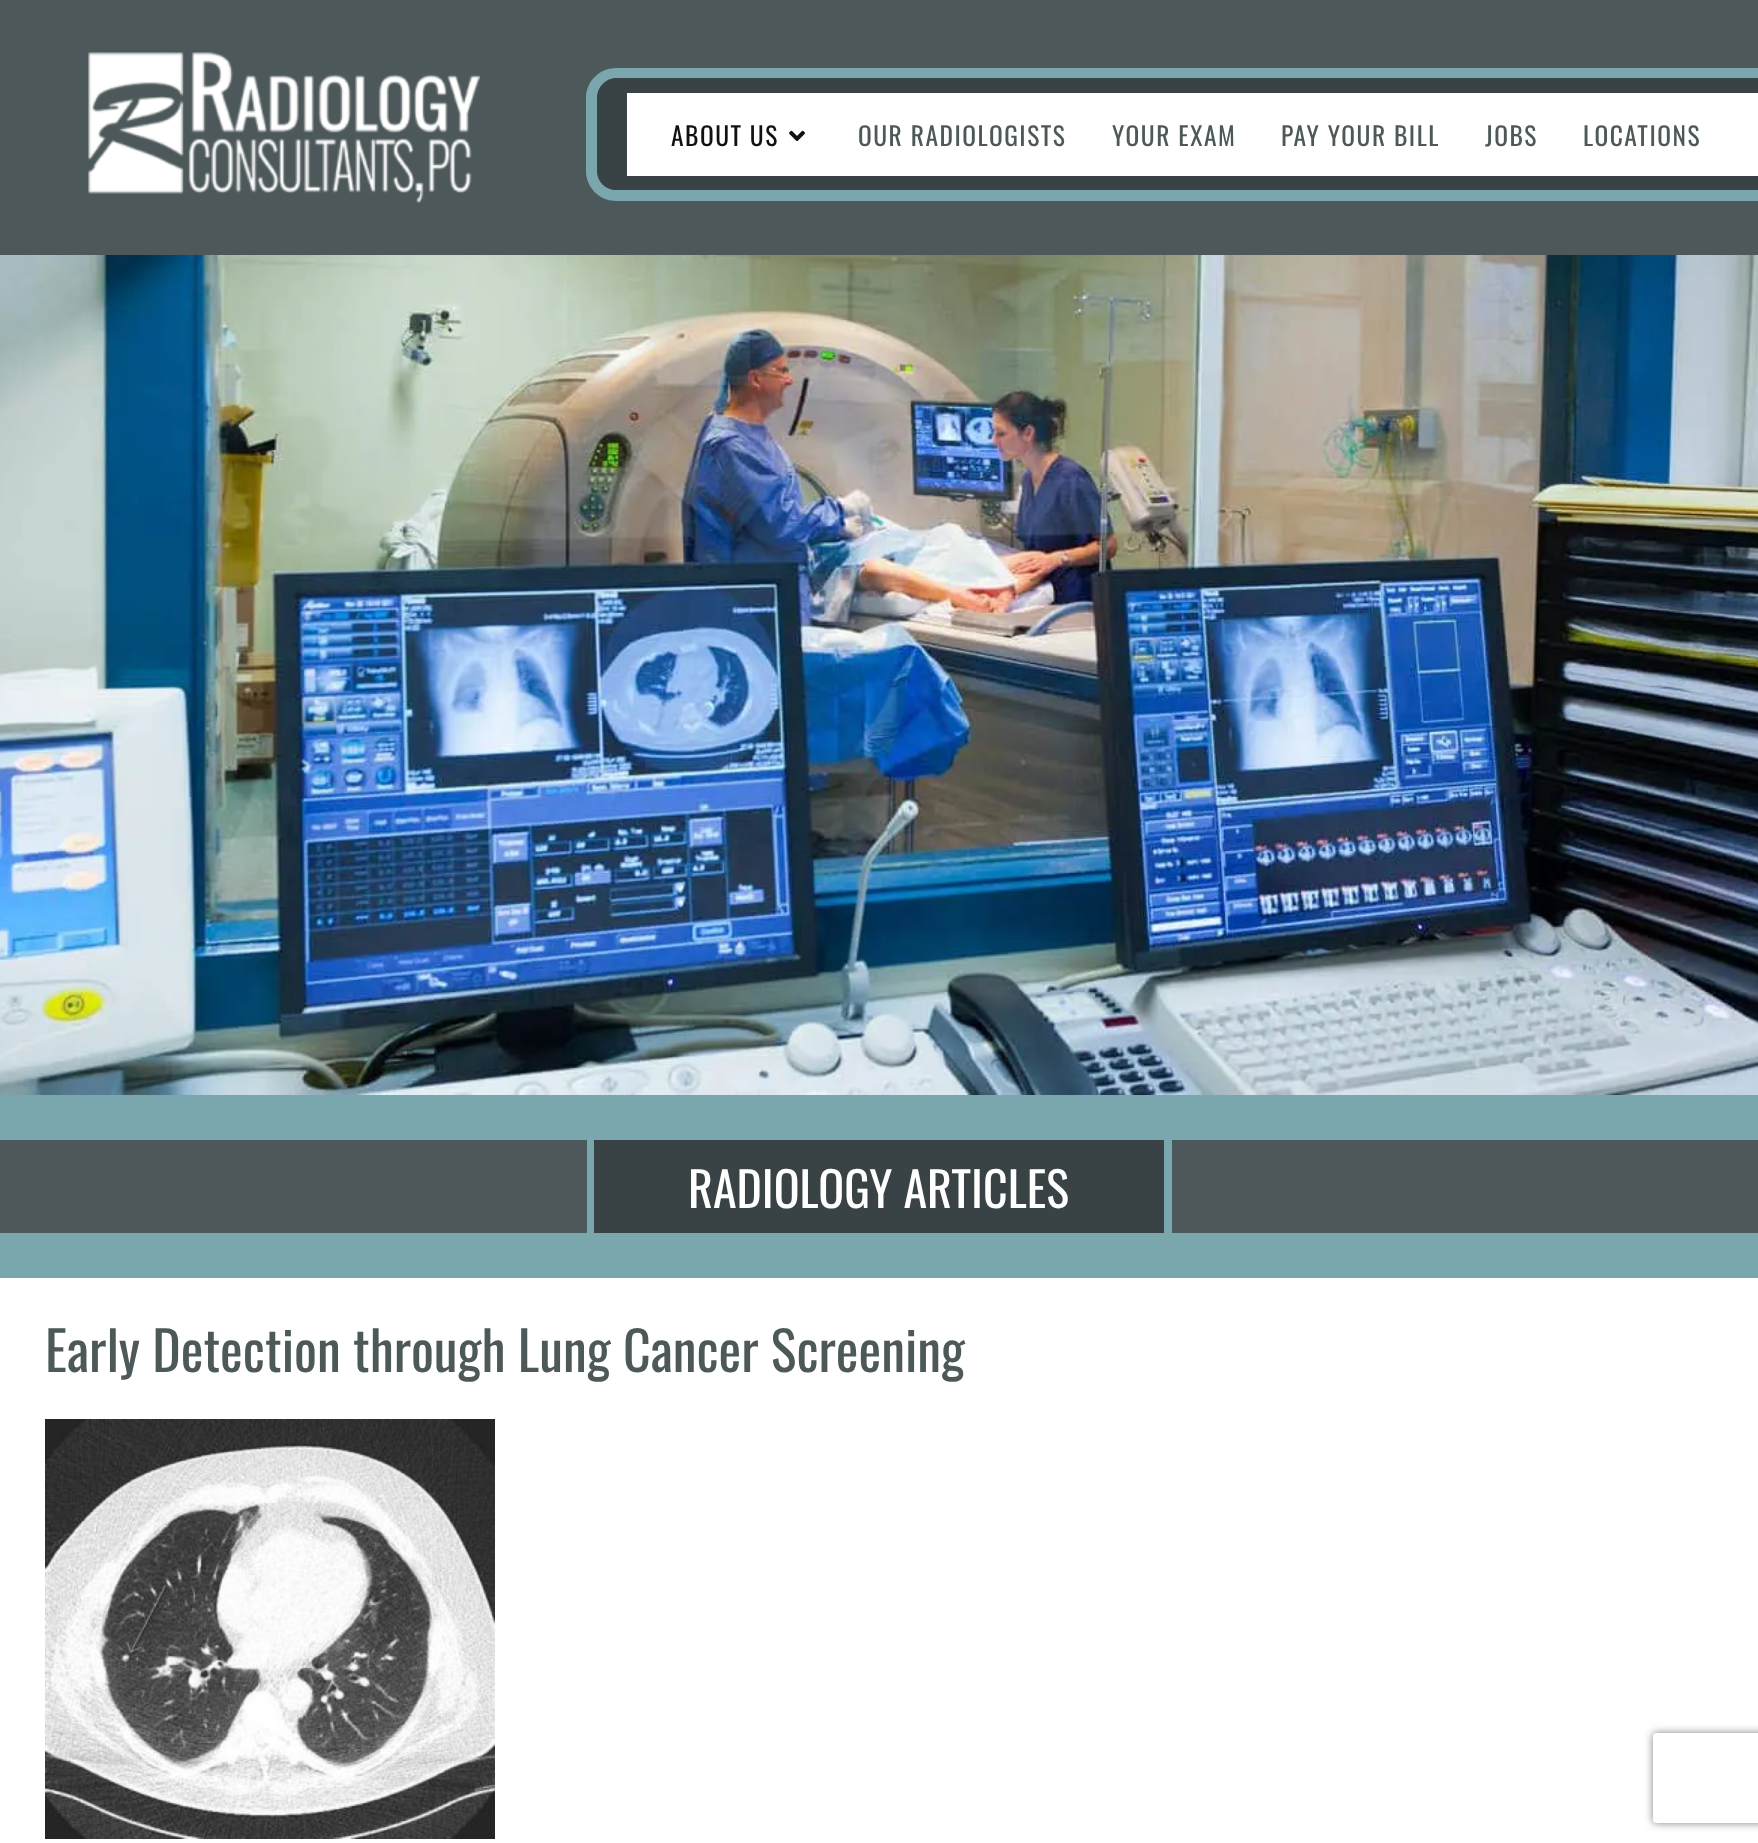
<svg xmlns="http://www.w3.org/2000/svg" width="1758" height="1843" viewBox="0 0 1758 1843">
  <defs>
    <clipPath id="clip1"><path d="M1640 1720H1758V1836H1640ZM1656 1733H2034C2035.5 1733 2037 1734.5 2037 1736V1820C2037 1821.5 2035.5 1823 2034 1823H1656C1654.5 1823 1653 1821.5 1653 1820V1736C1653 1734.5 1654.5 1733 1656 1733Z" clip-rule="evenodd"/></clipPath>
    <filter id="blur1" x="-50%" y="-200%" width="200%" height="500%"><feGaussianBlur stdDeviation="4"/></filter>
  </defs>
  <rect width="100%" height="100%" fill="#ffffff"/>
  <rect x="0" y="0" width="1758" height="255" fill="#4d585a"/>
  <image x="88" y="52" width="392" height="151" href="img1.png"/>
  <path d="M617 68H1758V201H617C600.5 201 587 187.5 587 171V98C587 81.5 600.5 68 617 68Z" fill="#394345"/>
  <path d="M616 68H1758V201H616C600 201 586 188 586 171V98C586 81 600 68 616 68ZM616 78H1758V190H616C606 190 597 182 597 171V98C597 87 606 78 616 78Z" fill="#7aa6ad" fill-rule="evenodd"/>
  <rect x="627" y="93" width="1131" height="83" fill="#ffffff"/>
  <text x="671" y="146" font-family="Oswald" font-size="25.5" letter-spacing="1.5" fill="#111111">ABOUT US</text>
  <image x="789" y="130" width="16" height="11" href="img2.png"/>
  <text x="858" y="146" font-family="Oswald" font-size="25.5" letter-spacing="1.5" fill="#4d5858">OUR RADIOLOGISTS</text>
  <text x="1112" y="146" font-family="Oswald" font-size="25.5" letter-spacing="1.5" fill="#4d5858">YOUR EXAM</text>
  <text x="1281" y="146" font-family="Oswald" font-size="25.5" letter-spacing="1.5" fill="#4d5858">PAY YOUR BILL</text>
  <text x="1485" y="146" font-family="Oswald" font-size="25.5" letter-spacing="1.5" fill="#4d5858">JOBS</text>
  <text x="1583" y="146" font-family="Oswald" font-size="25.5" letter-spacing="1.5" fill="#4d5858">LOCATIONS</text>
  <image x="0" y="255" width="1758" height="840" href="img3.png"/>
  <rect x="0" y="1140" width="1758" height="93" fill="#4d585a"/>
  <rect x="0" y="1095" width="1758" height="45" fill="#7aa6ad"/>
  <rect x="594" y="1140" width="570" height="93" fill="#394345"/>
  <rect x="1164" y="1140" width="8" height="93" fill="#7aa6ad"/>
  <rect x="587" y="1140" width="7" height="93" fill="#7aa6ad"/>
  <text x="688" y="1208" font-family="Oswald" font-size="48" fill="#ffffff">RADIOLOGY ARTICLES</text>
  <rect x="0" y="1233" width="1758" height="45" fill="#7aa6ad"/>
  <text x="45" y="1372" font-family="Oswald" font-size="54" fill="#4d5858">Early Detection through Lung Cancer Screening</text>
  <image x="45" y="1419" width="450" height="420" href="img4.png"/>
  <g clip-path="url(#clip1)">
    <rect x="1653" y="1733" width="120" height="90" rx="3" fill="#808080" filter="url(#blur1)"/>
  </g>
</svg>
